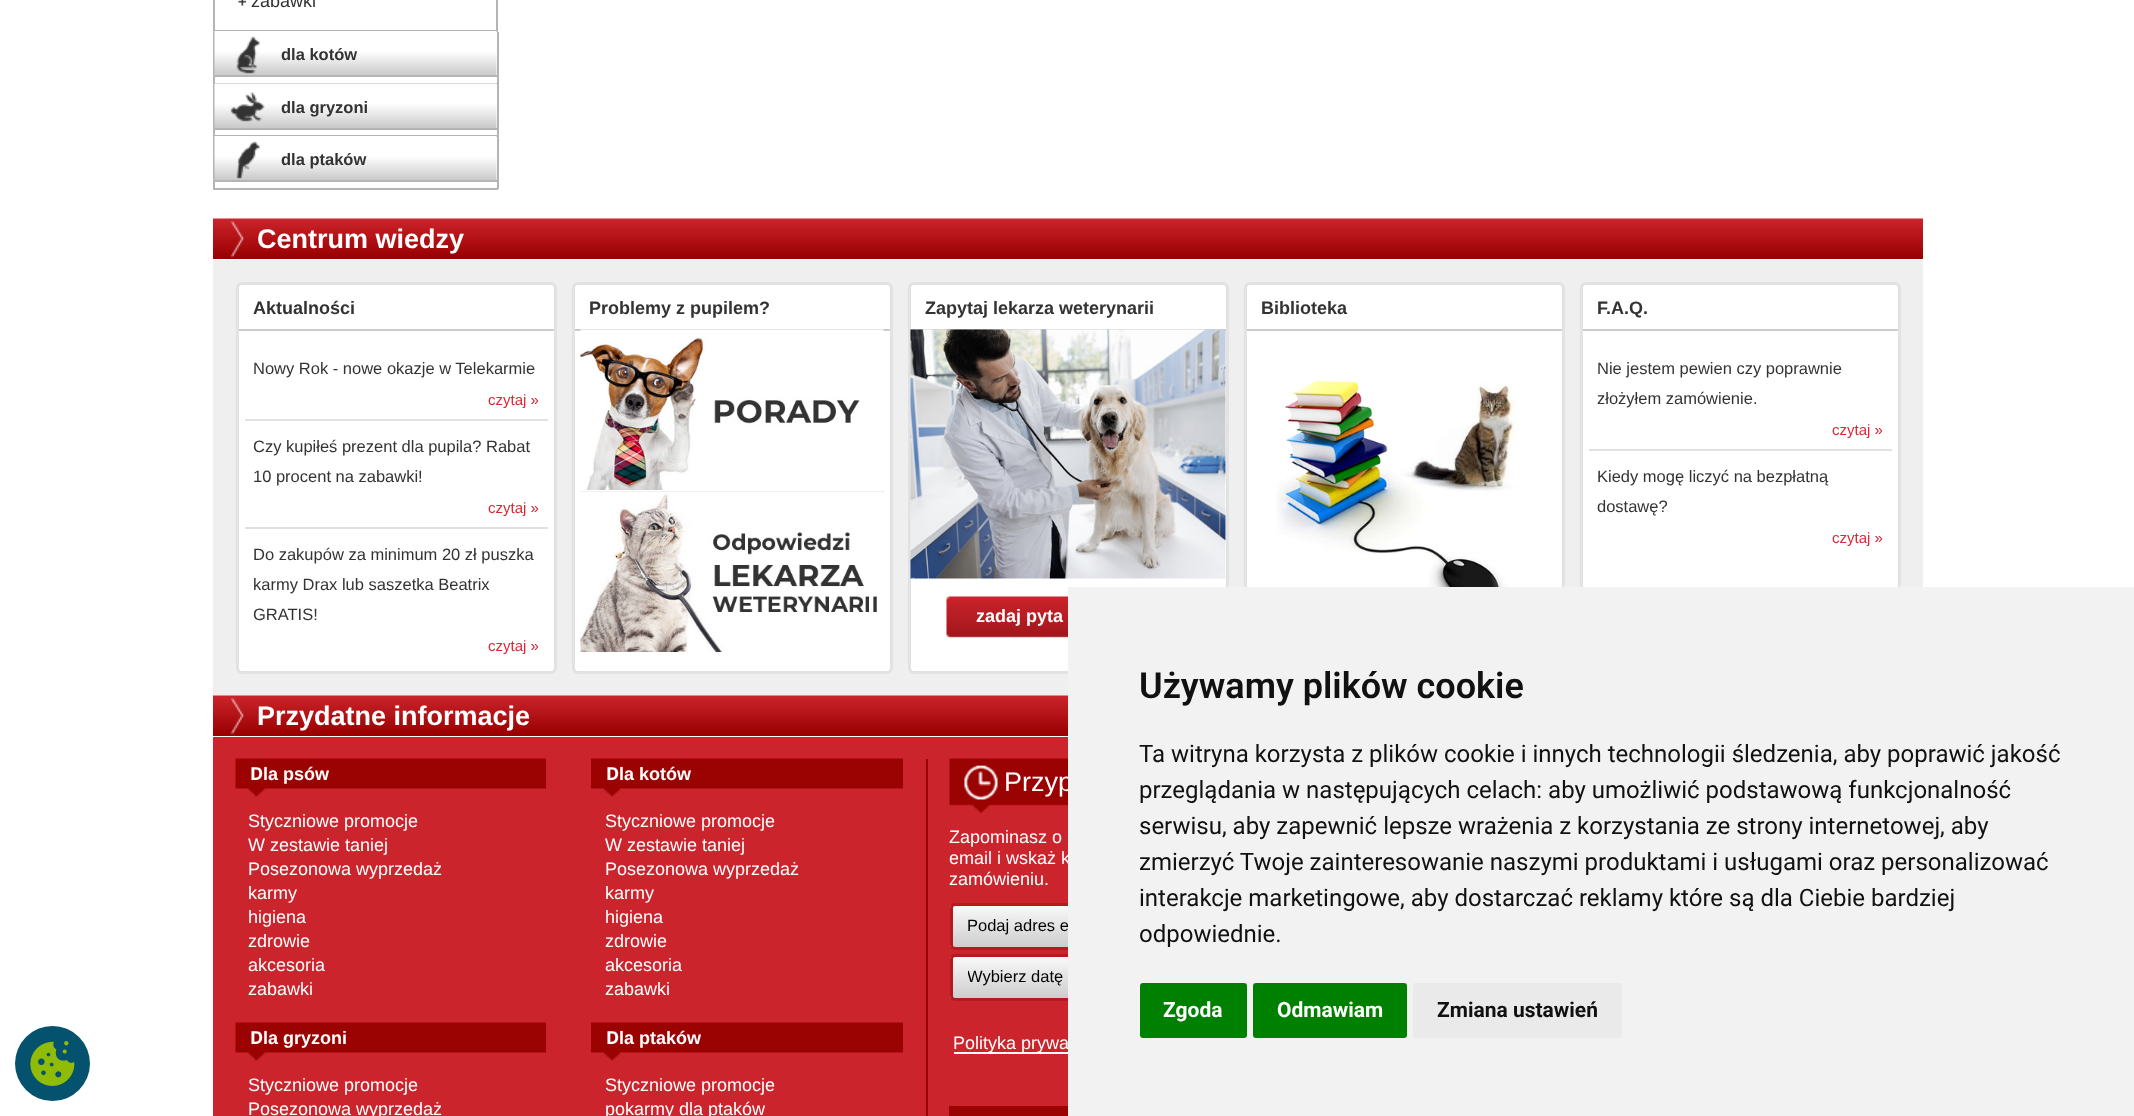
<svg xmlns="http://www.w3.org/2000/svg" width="2134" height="1116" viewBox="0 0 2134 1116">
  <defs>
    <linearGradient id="g1" gradientUnits="userSpaceOnUse" x1="1176" y1="906" x2="1176" y2="947"><stop offset="0" stop-color="#f9f9f9"/><stop offset="1" stop-color="#cdcdcd"/></linearGradient>
    <linearGradient id="g2" gradientUnits="userSpaceOnUse" x1="1176" y1="957" x2="1176" y2="998"><stop offset="0" stop-color="#f9f9f9"/><stop offset="1" stop-color="#cdcdcd"/></linearGradient>
    <clipPath id="clip1"><rect x="968" y="963" width="417" height="29"/></clipPath>
  </defs>
  <rect width="100%" height="100%" fill="#ffffff"/>
  <rect x="214" y="-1" width="283" height="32" fill="none" stroke="#b4b4b4" stroke-width="2"/>
  <image x="238" y="0" width="8" height="6" href="img1.png"/>
  <text x="251" y="7" font-family="Liberation Sans" font-size="18" fill="#333333">zabawki</text>
  <rect x="497" y="32" width="2" height="157" fill="#b4b4b4"/>
  <rect x="213" y="83" width="285" height="1" fill="#b4b4b4"/>
  <rect x="213" y="32" width="2" height="52" fill="#b4b4b4"/>
  <image x="214" y="31" width="283" height="45" href="img2.png"/>
  <rect x="215" y="75" width="282" height="2" fill="#b4b4b4"/>
  <image x="236" y="36" width="24" height="38" href="img3.png"/>
  <text x="281" y="60" font-family="Liberation Sans" font-size="16.5" font-weight="bold" fill="#333333">dla kotów</text>
  <rect x="213" y="135" width="285" height="2" fill="#b4b4b4"/>
  <rect x="213" y="84" width="2" height="53" fill="#b4b4b4"/>
  <image x="214" y="83" width="283" height="46" href="img4.png"/>
  <rect x="215" y="128" width="282" height="2" fill="#b4b4b4"/>
  <image x="230" y="92" width="35" height="30" href="img5.png"/>
  <text x="281" y="113" font-family="Liberation Sans" font-size="16.5" font-weight="bold" fill="#333333">dla gryzoni</text>
  <rect x="213" y="188" width="285" height="2" fill="#b4b4b4"/>
  <rect x="213" y="137" width="2" height="52" fill="#b4b4b4"/>
  <image x="214" y="136" width="283" height="45" href="img2.png"/>
  <rect x="215" y="180" width="282" height="2" fill="#b4b4b4"/>
  <image x="236" y="141" width="24" height="38" href="img6.png"/>
  <text x="281" y="165" font-family="Liberation Sans" font-size="16.5" font-weight="bold" fill="#333333">dla ptaków</text>
  <circle cx="52.5" cy="1063.5" r="37.5" fill="#05526e"/>
  <image x="30" y="1041" width="45" height="45" href="img7.png"/>
  <image x="213" y="218" width="1710" height="41" href="img8.png"/>
  <text x="257" y="248" font-family="Liberation Sans" font-size="27" font-weight="bold" fill="#ffffff">Centrum wiedzy</text>
  <rect x="213" y="260" width="1710" height="436" fill="#efefef"/>
  <rect x="237.5" y="283.5" width="318" height="389" rx="4.5" fill="#ffffff" stroke="#e2e2e2" stroke-width="3"/>
  <rect x="239" y="329" width="315" height="2" fill="#cccccc"/>
  <text x="253" y="314" font-family="Liberation Sans" font-size="18" font-weight="bold" fill="#333333">Aktualności</text>
  <text x="253" y="374" font-family="Liberation Sans" font-size="16.5" fill="#333333">Nowy Rok - nowe okazje w Telekarmie</text>
  <text x="488" y="405" font-family="Liberation Sans" font-size="15" fill="#d92934">czytaj »</text>
  <rect x="245" y="419" width="303" height="2" fill="#e1e1e1"/>
  <text x="253" y="452" font-family="Liberation Sans" font-size="16.5" fill="#333333">Czy kupiłeś prezent dla pupila? Rabat</text>
  <text x="253" y="482" font-family="Liberation Sans" font-size="16.5" fill="#333333">10 procent na zabawki!</text>
  <text x="488" y="513" font-family="Liberation Sans" font-size="15" fill="#d92934">czytaj »</text>
  <rect x="245" y="527" width="303" height="2" fill="#e1e1e1"/>
  <text x="253" y="560" font-family="Liberation Sans" font-size="16.5" fill="#333333">Do zakupów za minimum 20 zł puszka</text>
  <text x="253" y="590" font-family="Liberation Sans" font-size="16.5" fill="#333333">karmy Drax lub saszetka Beatrix</text>
  <text x="253" y="620" font-family="Liberation Sans" font-size="16.5" fill="#333333">GRATIS!</text>
  <text x="488" y="651" font-family="Liberation Sans" font-size="15" fill="#d92934">czytaj »</text>
  <rect x="573.5" y="283.5" width="318" height="389" rx="4.5" fill="#ffffff" stroke="#e2e2e2" stroke-width="3"/>
  <rect x="575" y="329" width="315" height="2" fill="#cccccc"/>
  <text x="589" y="314" font-family="Liberation Sans" font-size="18" font-weight="bold" fill="#333333">Problemy z pupilem?</text>
  <image x="580" y="329" width="304" height="161" href="img9.png"/>
  <rect x="581" y="491" width="303" height="2" fill="#e1e1e1"/>
  <image x="580" y="491" width="304" height="161" href="img10.png"/>
  <rect x="909.5" y="283.5" width="318" height="389" rx="4.5" fill="#ffffff" stroke="#e2e2e2" stroke-width="3"/>
  <rect x="911" y="329" width="315" height="2" fill="#cccccc"/>
  <text x="925" y="314" font-family="Liberation Sans" font-size="18" font-weight="bold" fill="#333333">Zapytaj lekarza weterynarii</text>
  <image x="910" y="329" width="316" height="250" href="img11.png"/>
  <image x="946" y="596" width="122" height="42" href="img12.png"/>
  <text x="976" y="622" font-family="Liberation Sans" font-size="18" font-weight="bold" fill="#ffffff">zadaj pyta</text>
  <rect x="1245.5" y="283.5" width="318" height="389" rx="4.5" fill="#ffffff" stroke="#e2e2e2" stroke-width="3"/>
  <rect x="1247" y="329" width="315" height="2" fill="#cccccc"/>
  <text x="1261" y="314" font-family="Liberation Sans" font-size="18" font-weight="bold" fill="#333333">Biblioteka</text>
  <image x="1276" y="380" width="243" height="207" href="img13.png"/>
  <rect x="1581.5" y="283.5" width="318" height="389" rx="4.5" fill="#ffffff" stroke="#e2e2e2" stroke-width="3"/>
  <rect x="1583" y="329" width="315" height="2" fill="#cccccc"/>
  <text x="1597" y="314" font-family="Liberation Sans" font-size="18" font-weight="bold" fill="#333333">F.A.Q.</text>
  <text x="1597" y="374" font-family="Liberation Sans" font-size="16.5" fill="#333333">Nie jestem pewien czy poprawnie</text>
  <text x="1597" y="404" font-family="Liberation Sans" font-size="16.5" fill="#333333">złożyłem zamówienie.</text>
  <text x="1832" y="435" font-family="Liberation Sans" font-size="15" fill="#d92934">czytaj »</text>
  <rect x="1589" y="449" width="303" height="2" fill="#e1e1e1"/>
  <text x="1597" y="482" font-family="Liberation Sans" font-size="16.5" fill="#333333">Kiedy mogę liczyć na bezpłatną</text>
  <text x="1597" y="512" font-family="Liberation Sans" font-size="16.5" fill="#333333">dostawę?</text>
  <text x="1832" y="543" font-family="Liberation Sans" font-size="15" fill="#d92934">czytaj »</text>
  <image x="213" y="695" width="855" height="41" href="img14.png"/>
  <text x="257" y="725" font-family="Liberation Sans" font-size="27" font-weight="bold" fill="#ffffff">Przydatne informacje</text>
  <rect x="213" y="737" width="855" height="379" fill="#cb242c"/>
  <image x="235" y="758" width="311" height="40" href="img15.png"/>
  <text x="250" y="780" font-family="Noto Sans" font-size="18" font-weight="bold" fill="#ffffff">D</text>
  <text x="263" y="780" font-family="Liberation Sans" font-size="18" font-weight="bold" fill="#ffffff">la psów</text>
  <text x="248" y="827" font-family="Liberation Sans" font-size="18" fill="#ffffff">Styczniowe promocje</text>
  <text x="248" y="851" font-family="Liberation Sans" font-size="18" fill="#ffffff">W zestawie taniej</text>
  <text x="248" y="875" font-family="Liberation Sans" font-size="18" fill="#ffffff">Posezonowa wyprzedaż</text>
  <text x="248" y="899" font-family="Liberation Sans" font-size="18" fill="#ffffff">karmy</text>
  <text x="248" y="923" font-family="Liberation Sans" font-size="18" fill="#ffffff">higiena</text>
  <text x="248" y="947" font-family="Liberation Sans" font-size="18" fill="#ffffff">zdrowie</text>
  <text x="248" y="971" font-family="Liberation Sans" font-size="18" fill="#ffffff">akcesoria</text>
  <text x="248" y="995" font-family="Liberation Sans" font-size="18" fill="#ffffff">zabawki</text>
  <image x="591" y="758" width="312" height="40" href="img16.png"/>
  <text x="606" y="780" font-family="Noto Sans" font-size="18" font-weight="bold" fill="#ffffff">D</text>
  <text x="619" y="780" font-family="Liberation Sans" font-size="18" font-weight="bold" fill="#ffffff">la kotów</text>
  <text x="605" y="827" font-family="Liberation Sans" font-size="18" fill="#ffffff">Styczniowe promocje</text>
  <text x="605" y="851" font-family="Liberation Sans" font-size="18" fill="#ffffff">W zestawie taniej</text>
  <text x="605" y="875" font-family="Liberation Sans" font-size="18" fill="#ffffff">Posezonowa wyprzedaż</text>
  <text x="605" y="899" font-family="Liberation Sans" font-size="18" fill="#ffffff">karmy</text>
  <text x="605" y="923" font-family="Liberation Sans" font-size="18" fill="#ffffff">higiena</text>
  <text x="605" y="947" font-family="Liberation Sans" font-size="18" fill="#ffffff">zdrowie</text>
  <text x="605" y="971" font-family="Liberation Sans" font-size="18" fill="#ffffff">akcesoria</text>
  <text x="605" y="995" font-family="Liberation Sans" font-size="18" fill="#ffffff">zabawki</text>
  <image x="235" y="1022" width="311" height="40" href="img15.png"/>
  <text x="250" y="1044" font-family="Noto Sans" font-size="18" font-weight="bold" fill="#ffffff">D</text>
  <text x="263" y="1044" font-family="Liberation Sans" font-size="18" font-weight="bold" fill="#ffffff">la gryzoni</text>
  <text x="248" y="1091" font-family="Liberation Sans" font-size="18" fill="#ffffff">Styczniowe promocje</text>
  <text x="248" y="1115" font-family="Liberation Sans" font-size="18" fill="#ffffff">Posezonowa wyprzedaż</text>
  <image x="591" y="1022" width="312" height="40" href="img16.png"/>
  <text x="606" y="1044" font-family="Noto Sans" font-size="18" font-weight="bold" fill="#ffffff">D</text>
  <text x="619" y="1044" font-family="Liberation Sans" font-size="18" font-weight="bold" fill="#ffffff">la ptaków</text>
  <text x="605" y="1091" font-family="Liberation Sans" font-size="18" fill="#ffffff">Styczniowe promocje</text>
  <text x="605" y="1115" font-family="Liberation Sans" font-size="18" fill="#ffffff">pokarmy dla ptaków</text>
  <rect x="926" y="759" width="2" height="357" fill="#9b0202"/>
  <image x="949" y="758" width="119" height="55" href="img17.png"/>
  <image x="964" y="765" width="34" height="35" href="img18.png"/>
  <text x="1004" y="791" font-family="Liberation Sans" font-size="27" fill="#ffffff">Przyp</text>
  <text x="949" y="843" font-family="Liberation Sans" font-size="18" fill="#ffffff">Zapominasz o</text>
  <text x="949" y="864" font-family="Liberation Sans" font-size="18" fill="#ffffff">email i wskaż k</text>
  <text x="949" y="885" font-family="Liberation Sans" font-size="18" fill="#ffffff">zamówieniu.</text>
  <rect x="950" y="906" width="118" height="41" fill="url(#g1)"/>
  <rect x="951.5" y="904.5" width="450" height="44" rx="3.5" fill="none" stroke="#b51a20" stroke-width="3"/>
  <text x="967" y="931" font-family="Liberation Sans" font-size="16.5" fill="#000000">Podaj adres e</text>
  <rect x="950" y="957" width="118" height="41" fill="url(#g2)"/>
  <rect x="951.5" y="955.5" width="450" height="44" rx="3.5" fill="none" stroke="#b51a20" stroke-width="3"/>
  <g clip-path="url(#clip1)">
    <text x="967" y="982" font-family="Liberation Sans" font-size="16.5" fill="#000000">Wybierz datę</text>
  </g>
  <rect x="954" y="1052" width="114" height="2" fill="#ffffff"/>
  <text x="953" y="1049" font-family="Liberation Sans" font-size="18" fill="#ffffff">Polityka prywa</text>
  <rect x="949" y="1106" width="119" height="10" fill="#9b0202"/>
  <rect x="1068" y="587" width="1066" height="529" fill="#f2f2f2"/>
  <text x="1139" y="698" font-family="Roboto" font-size="36" font-weight="600" fill="#111111">Używamy plików cookie</text>
  <text x="1139" y="762" font-family="Roboto" font-size="24" fill="#111111">Ta witryna korzysta z plików cookie i innych technologii śledzenia, aby poprawić jakość</text>
  <text x="1139" y="798" font-family="Roboto" font-size="24" fill="#111111">przeglądania w następujących celach: aby umożliwić podstawową funkcjonalność</text>
  <text x="1139" y="834" font-family="Roboto" font-size="24" fill="#111111">serwisu, aby zapewnić lepsze wrażenia z korzystania ze strony internetowej, aby</text>
  <text x="1139" y="870" font-family="Roboto" font-size="24" fill="#111111">zmierzyć Twoje zainteresowanie naszymi produktami i usługami oraz personalizować</text>
  <text x="1139" y="906" font-family="Roboto" font-size="24" fill="#111111">interakcje marketingowe, aby dostarczać reklamy które są dla Ciebie bardziej</text>
  <text x="1139" y="942" font-family="Roboto" font-size="24" fill="#111111">odpowiednie.</text>
  <rect x="1140" y="983" width="107" height="55" rx="3" fill="#008000"/>
  <text x="1163" y="1017" font-family="Roboto" font-size="21" font-weight="bold" fill="#ffffff">Zgoda</text>
  <rect x="1253" y="983" width="154" height="55" rx="3" fill="#008000"/>
  <text x="1277" y="1017" font-family="Roboto" font-size="21" font-weight="bold" fill="#ffffff">Odmawiam</text>
  <rect x="1413" y="983" width="209" height="55" rx="3" fill="#eaeaea"/>
  <text x="1437" y="1017" font-family="Roboto" font-size="21" font-weight="bold" fill="#111111">Zmiana ustawień</text>
</svg>
